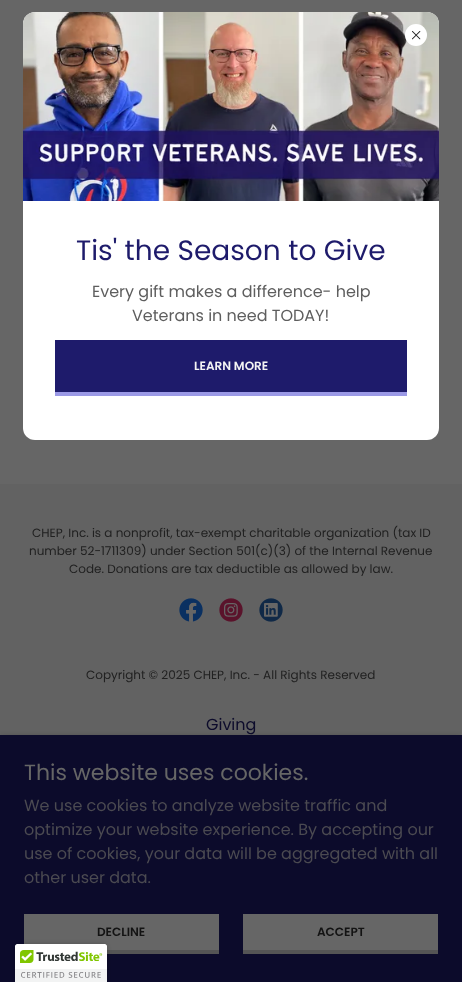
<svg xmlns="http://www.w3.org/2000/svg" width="462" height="982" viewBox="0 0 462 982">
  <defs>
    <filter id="blur1" x="-50%" y="-200%" width="200%" height="500%"><feGaussianBlur stdDeviation="3"/></filter>
    <filter id="blur2" x="-50%" y="-200%" width="200%" height="500%"><feGaussianBlur stdDeviation="2.5"/></filter>
  </defs>
  <rect width="100%" height="100%" fill="#626262"/>
  <rect x="0" y="0" width="462" height="484" fill="#666666"/>
  <rect x="23" y="12" width="416" height="428" rx="12" fill="#ffffff"/>
  <image x="23" y="12" width="416" height="189" href="img2.png"/>
  <circle cx="416" cy="35" r="11" fill="#ffffff"/>
  <image x="412" y="31" width="9" height="9" href="img1.png"/>
  <text x="76" y="260" font-family="Poppins" font-size="28" fill="#1e1b6b">Tis' the Season to Give</text>
  <text x="92" y="297" font-family="Poppins" font-size="16" fill="#5e5e5e">Every gift makes a difference- help</text>
  <text x="132" y="321" font-family="Poppins" font-size="16" fill="#5e5e5e">Veterans in need TODAY!</text>
  <rect x="55" y="340" width="352" height="52" fill="#1e1b6b"/>
  <rect x="55" y="392" width="352" height="4" fill="#9b99e6"/>
  <text x="194" y="370" font-family="Poppins" font-size="12" font-weight="600" fill="#f4f4f4">LEARN MORE</text>
  <text x="32" y="537" font-family="Poppins" font-size="12" fill="#212121">CHEP, Inc. is a nonprofit, tax-exempt charitable organization (tax ID</text>
  <text x="29" y="555" font-family="Poppins" font-size="12" fill="#212121">number 52-1711309) under Section 501(c)(3) of the Internal Revenue</text>
  <text x="69" y="573" font-family="Poppins" font-size="12" fill="#212121">Code. Donations are tax deductible as allowed by law.</text>
  <image x="179" y="598" width="24" height="24" href="img3.png"/>
  <image x="219" y="598" width="24" height="24" href="img4.png"/>
  <image x="259" y="598" width="24" height="24" href="img5.png"/>
  <text x="86" y="679" font-family="Poppins" font-size="12" fill="#212121">Copyright © 2025 CHEP, Inc. - All Rights Reserved</text>
  <text x="206" y="730" font-family="Poppins" font-size="16" fill="#0c0b2b">Giving</text>
  <rect x="0" y="737" width="462" height="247" fill="#000000" fill-opacity="0.3" filter="url(#blur1)"/>
  <rect x="0" y="735" width="462" height="247" fill="#0c0b2b"/>
  <text x="24" y="780" font-family="Poppins" font-size="22" fill="#666666">This website uses cookies.</text>
  <text x="24" y="811" font-family="Poppins" font-size="16" fill="#4b4a51">We use cookies to analyze website traffic and</text>
  <text x="24" y="835" font-family="Poppins" font-size="16" fill="#4b4a51">optimize your website experience. By accepting our</text>
  <text x="24" y="859" font-family="Poppins" font-size="16" fill="#4b4a51">use of cookies, your data will be aggregated with all</text>
  <text x="24" y="883" font-family="Poppins" font-size="16" fill="#4b4a51">other user data.</text>
  <rect x="24" y="914" width="195" height="36" fill="#666666"/>
  <rect x="107" y="950" width="112" height="4" fill="#555555"/>
  <text x="97" y="936" font-family="Poppins" font-size="12" font-weight="600" fill="#131313">DECLINE</text>
  <rect x="243" y="914" width="195" height="36" fill="#666666"/>
  <rect x="243" y="950" width="195" height="4" fill="#555555"/>
  <text x="317" y="936" font-family="Poppins" font-size="12" font-weight="600" fill="#131313">ACCEPT</text>
  <rect x="15" y="944" width="92" height="38" rx="2" fill="#000000" fill-opacity="0.2" filter="url(#blur2)"/>
  <image x="15" y="944" width="92" height="38" href="img6.png"/>
</svg>
